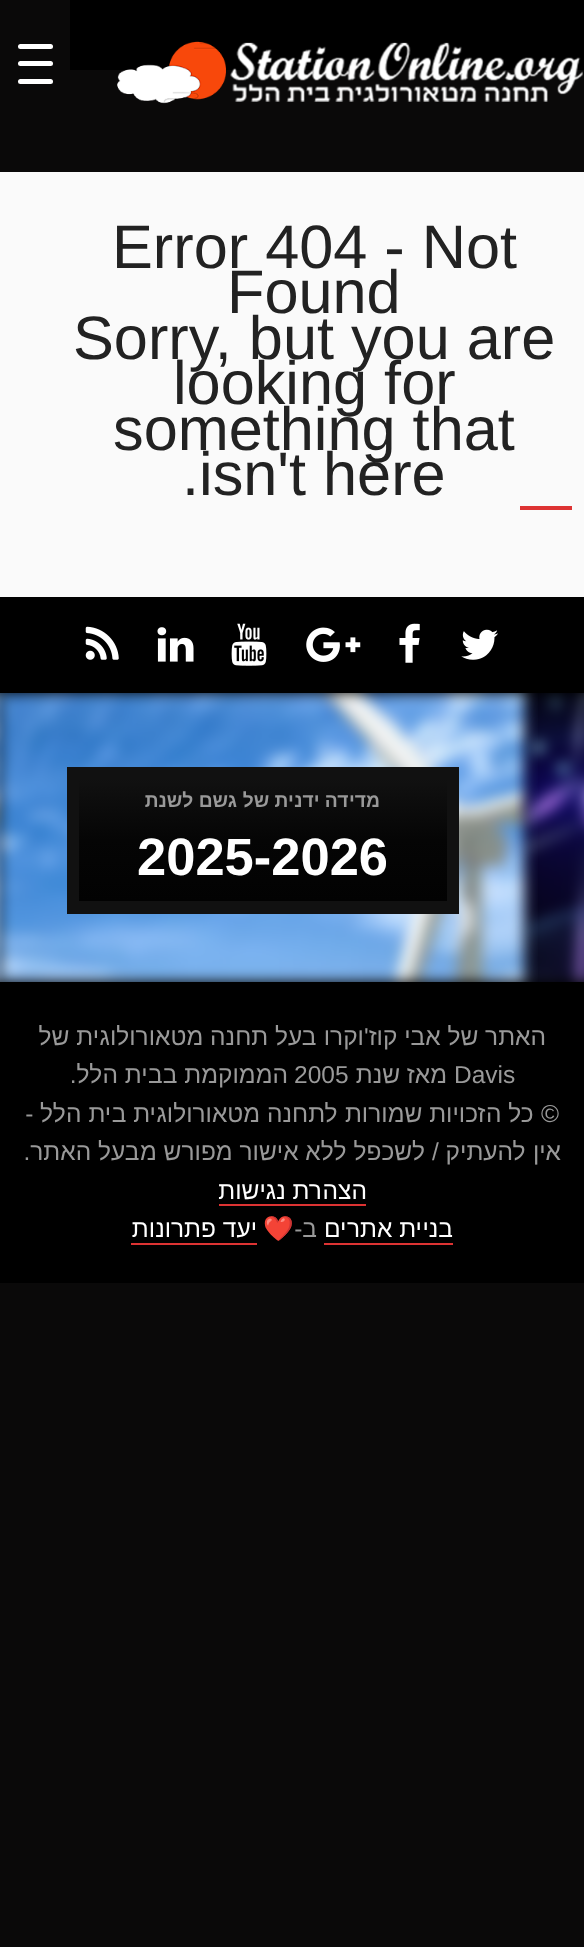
<svg xmlns="http://www.w3.org/2000/svg" width="584" height="1947" viewBox="0 0 584 1947">
  <defs>
    <linearGradient id="g1" gradientUnits="userSpaceOnUse" x1="263" y1="779" x2="263" y2="901"><stop offset="0" stop-color="#111111"/><stop offset="0.5" stop-color="#050505"/><stop offset="1" stop-color="#020202"/></linearGradient>
    <linearGradient id="g2" gradientUnits="userSpaceOnUse" x1="263" y1="901" x2="263" y2="1024"><stop offset="0" stop-color="#111111"/><stop offset="0.5" stop-color="#050505"/><stop offset="1" stop-color="#020202"/></linearGradient>
  </defs>
  <rect width="100%" height="100%" fill="#0a0909"/>
  <rect x="70" y="0" width="514" height="70" fill="#000000"/>
  <image x="117" y="41" width="466" height="63" href="img1.png"/>
  <rect x="18" y="61" width="35" height="5" rx="2.5" fill="#ffffff"/>
  <rect x="18" y="44" width="35" height="5" rx="2.5" fill="#ffffff"/>
  <rect x="18" y="79" width="35" height="5" rx="2.5" fill="#ffffff"/>
  <rect x="0" y="172" width="584" height="425" fill="#fafafa"/>
  <text x="112" y="268" font-family="Arimo" font-size="61.25" fill="#222222">Error 404 - Not</text>
  <text x="227" y="313" font-family="Arimo" font-size="61.25" fill="#222222">Found</text>
  <text x="73" y="359" font-family="Arimo" font-size="61.25" fill="#222222">Sorry, but you are</text>
  <text x="173" y="404" font-family="Arimo" font-size="61.25" fill="#222222">looking for</text>
  <text x="113" y="450" font-family="Arimo" font-size="61.25" fill="#222222">something that</text>
  <text x="182" y="495" font-family="Arimo" font-size="61.25" fill="#222222">.isn't here</text>
  <rect x="520" y="506" width="52" height="4" fill="#dd3333"/>
  <rect x="0" y="597" width="584" height="686" fill="#000000"/>
  <image x="461" y="629" width="37" height="31" href="img2.png"/>
  <image x="399" y="623" width="21" height="40" href="img3.png"/>
  <image x="306" y="627" width="55" height="35" href="img4.png"/>
  <image x="231" y="623" width="36" height="43" href="img5.png"/>
  <image x="157" y="627" width="37" height="35" href="img6.png"/>
  <image x="85" y="626" width="34" height="34" href="img7.png"/>
  <image x="0" y="693" width="13" height="289" href="img10.png"/>
  <image x="0" y="693" width="538" height="289" href="img9.png"/>
  <image x="515" y="693" width="69" height="289" href="img8.png"/>
  <rect x="79" y="779" width="368" height="122" fill="url(#g1)"/>
  <rect x="79" y="901" width="368" height="1" fill="url(#g2)"/>
  <rect x="73" y="773" width="380" height="135" fill="none" stroke="#111111" stroke-width="12"/>
  <text x="380" y="807" font-family="Arimo" font-size="19.25" font-weight="bold" direction="rtl" fill="#999999">מדידה ידנית של גשם לשנת</text>
  <text x="137" y="875" font-family="Arimo" font-size="52.5" font-weight="bold" fill="#ffffff">2025-2026</text>
  <text x="546" y="1045" font-family="Arimo" font-size="24.5" direction="rtl" fill="#999999">האתר של אבי קוז'וקרו בעל תחנה מטאורולוגית של</text>
  <text x="454" y="1083" font-family="Arimo" font-size="24.5" fill="#999999">Davis</text>
  <text x="447" y="1083" font-family="Arimo" font-size="24.5" direction="rtl" fill="#999999">מאז שנת</text>
  <text x="294" y="1083" font-family="Arimo" font-size="24.5" fill="#999999">2005</text>
  <text x="288" y="1083" font-family="Arimo" font-size="24.5" direction="rtl" fill="#999999">הממוקמת בבית הלל.</text>
  <text x="559" y="1122" font-family="Arimo" font-size="24.5" direction="rtl" fill="#999999">© כל הזכויות שמורות לתחנה מטאורולוגית בית הלל -</text>
  <text x="561" y="1160" font-family="Arimo" font-size="24.5" direction="rtl" fill="#999999">אין להעתיק / לשכפל ללא אישור מפורש מבעל האתר.</text>
  <text x="367" y="1199" font-family="Arimo" font-size="24.5" direction="rtl" fill="#ffffff">הצהרת נגישות</text>
  <rect x="219" y="1204" width="147" height="2" fill="#dd3333"/>
  <text x="453" y="1237" font-family="Arimo" font-size="24.5" direction="rtl" fill="#ffffff">בניית אתרים</text>
  <rect x="324" y="1243" width="129" height="2" fill="#dd3333"/>
  <text x="317" y="1237" font-family="Arimo" font-size="24.5" direction="rtl" fill="#999999">ב-</text>
  <text x="294" y="1237" font-family="Noto Color Emoji" font-size="24.5" direction="rtl" fill="#999999">❤️</text>
  <text x="257" y="1237" font-family="Arimo" font-size="24.5" direction="rtl" fill="#ffffff">יעד פתרונות</text>
  <rect x="131" y="1243" width="126" height="2" fill="#dd3333"/>
</svg>
